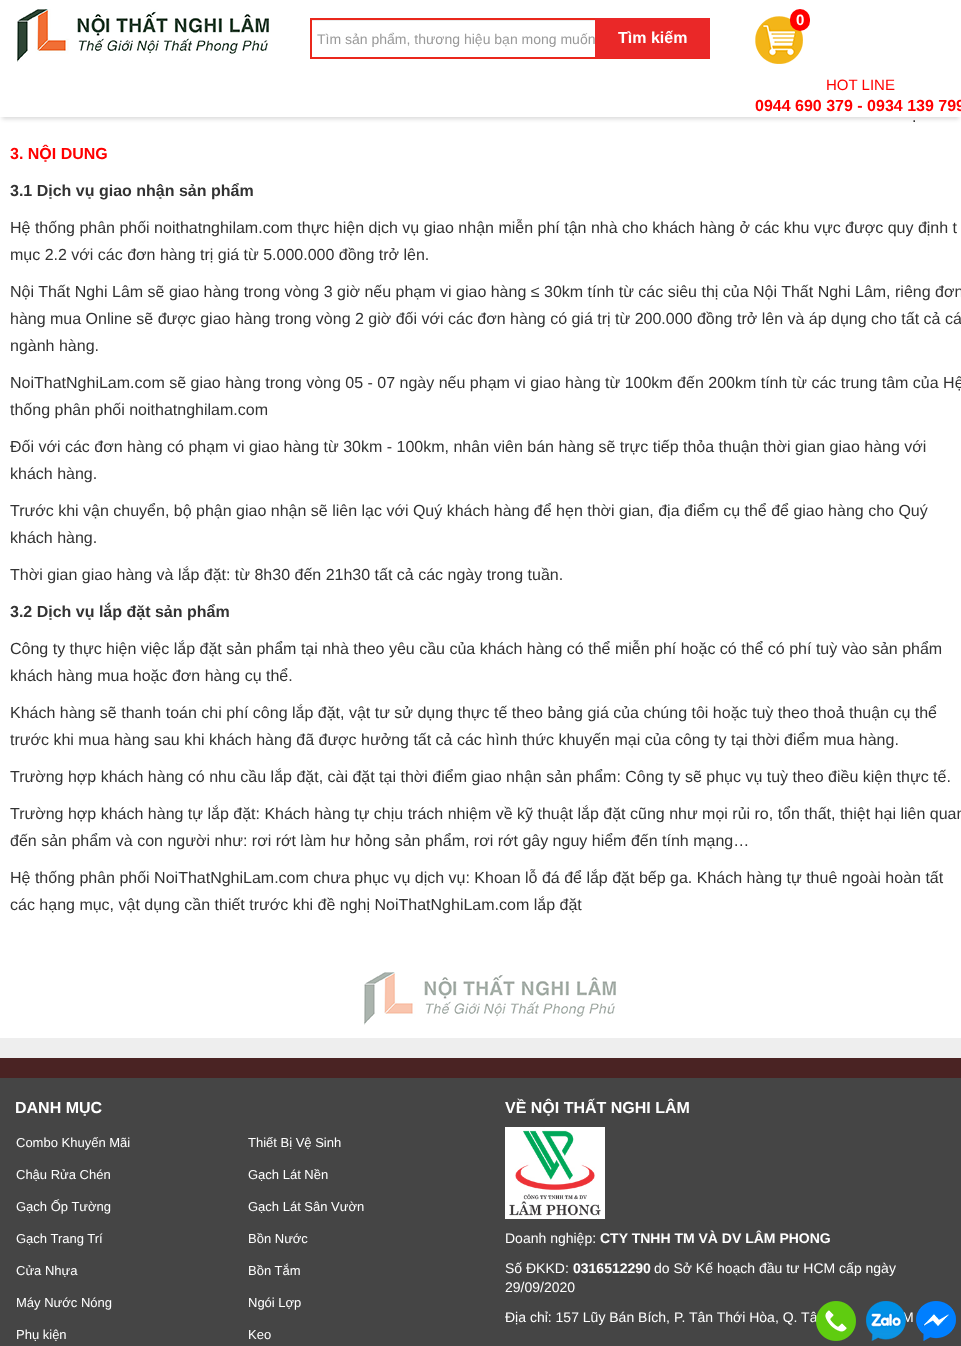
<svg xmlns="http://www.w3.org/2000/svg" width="961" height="1346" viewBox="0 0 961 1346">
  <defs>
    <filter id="blur1" x="-50%" y="-200%" width="200%" height="500%"><feGaussianBlur stdDeviation="2"/></filter>
  </defs>
  <rect width="100%" height="100%" fill="#eeeeee"/>
  <rect x="0" y="117" width="961" height="921" fill="#ffffff"/>
  <rect x="2" y="6" width="957" height="113" fill="#000000" fill-opacity="0.15" filter="url(#blur1)"/>
  <rect x="0" y="0" width="961" height="117" fill="#ffffff"/>
  <image x="17" y="9" width="252" height="53" href="img1.png"/>
  <image x="755" y="16" width="48" height="48" href="img2.png"/>
  <rect x="790" y="9" width="20" height="22" rx="10" fill="#ff0000"/>
  <text x="796" y="25" font-family="Liberation Sans" font-size="15" font-weight="bold" fill="#ffffff">0</text>
  <rect x="312" y="20" width="283" height="1" fill="#ececec"/>
  <rect x="311" y="19" width="398" height="39" fill="none" stroke="#ea281c" stroke-width="2"/>
  <text x="317" y="44" font-family="Liberation Sans" font-size="14" fill="#999999">Tìm sản phẩm, thương hiệu bạn mong muốn</text>
  <rect x="595" y="18" width="115" height="40" fill="#ea2828"/>
  <text x="618" y="43" font-family="Liberation Sans" font-size="16" font-weight="bold" fill="#ffffff">Tìm kiếm</text>
  <text x="826" y="90" font-family="Liberation Sans" font-size="15" fill="#ff0000">HOT LINE</text>
  <text x="755" y="111" font-family="Liberation Sans" font-size="16" font-weight="bold" fill="#ff0000">0944 690 379 - 0934 139 799</text>
  <text x="912" y="122" font-family="Liberation Sans" font-size="16" fill="#333333">.</text>
  <text x="10" y="159" font-family="Liberation Sans" font-size="16" font-weight="bold" fill="#ff0000">3. NỘI DUNG</text>
  <text x="10" y="196" font-family="Liberation Sans" font-size="16" font-weight="bold" fill="#333333">3.1 Dịch vụ giao nhận sản phẩm</text>
  <text x="10" y="233" font-family="Liberation Sans" font-size="16" fill="#333333">Hệ thống phân phối noithatnghilam.com thực hiện dịch vụ giao nhận miễn phí tận nhà cho khách hàng ở các khu vực được quy định t</text>
  <text x="10" y="260" font-family="Liberation Sans" font-size="16" fill="#333333">mục 2.2 với các đơn hàng trị giá từ 5.000.000 đồng trở lên.</text>
  <text x="10" y="297" font-family="Liberation Sans" font-size="16" fill="#333333">Nội Thất Nghi Lâm sẽ giao hàng trong vòng 3 giờ nếu phạm vi giao hàng ≤ 30km tính từ các siêu thị của Nội Thất Nghi Lâm, riêng đơn</text>
  <text x="10" y="324" font-family="Liberation Sans" font-size="16" fill="#333333">hàng mua Online sẽ được giao hàng trong vòng 2 giờ đối với các đơn hàng có giá trị từ 200.000 đồng trở lên và áp dụng cho tất cả cá</text>
  <text x="10" y="351" font-family="Liberation Sans" font-size="16" fill="#333333">ngành hàng.</text>
  <text x="10" y="388" font-family="Liberation Sans" font-size="16" fill="#333333">NoiThatNghiLam.com sẽ giao hàng trong vòng 05 - 07 ngày nếu phạm vi giao hàng từ 100km đến 200km tính từ các trung tâm của Hệ</text>
  <text x="10" y="415" font-family="Liberation Sans" font-size="16" fill="#333333">thống phân phối noithatnghilam.com</text>
  <text x="10" y="452" font-family="Liberation Sans" font-size="16" fill="#333333">Đối với các đơn hàng có phạm vi giao hàng từ 30km - 100km, nhân viên bán hàng sẽ trực tiếp thỏa thuận thời gian giao hàng với</text>
  <text x="10" y="479" font-family="Liberation Sans" font-size="16" fill="#333333">khách hàng.</text>
  <text x="10" y="516" font-family="Liberation Sans" font-size="16" fill="#333333">Trước khi vận chuyển, bộ phận giao nhận sẽ liên lạc với Quý khách hàng để hẹn thời gian, địa điểm cụ thể để giao hàng cho Quý</text>
  <text x="10" y="543" font-family="Liberation Sans" font-size="16" fill="#333333">khách hàng.</text>
  <text x="10" y="580" font-family="Liberation Sans" font-size="16" fill="#333333">Thời gian giao hàng và lắp đặt: từ 8h30 đến 21h30 tất cả các ngày trong tuần.</text>
  <text x="10" y="617" font-family="Liberation Sans" font-size="16" font-weight="bold" fill="#333333">3.2 Dịch vụ lắp đặt sản phẩm</text>
  <text x="10" y="654" font-family="Liberation Sans" font-size="16" fill="#333333">Công ty thực hiện việc lắp đặt sản phẩm tại nhà theo yêu cầu của khách hàng có thể miễn phí hoặc có thể có phí tuỳ vào sản phẩm</text>
  <text x="10" y="681" font-family="Liberation Sans" font-size="16" fill="#333333">khách hàng mua hoặc đơn hàng cụ thể.</text>
  <text x="10" y="718" font-family="Liberation Sans" font-size="16" fill="#333333">Khách hàng sẽ thanh toán chi phí công lắp đặt, vật tư sử dụng thực tế theo bảng giá của chúng tôi hoặc tuỳ theo thoả thuận cụ thể</text>
  <text x="10" y="745" font-family="Liberation Sans" font-size="16" fill="#333333">trước khi mua hàng sau khi khách hàng đã được hưởng tất cả các hình thức khuyến mại của công ty tại thời điểm mua hàng.</text>
  <text x="10" y="782" font-family="Liberation Sans" font-size="16" fill="#333333">Trường hợp khách hàng có nhu cầu lắp đặt, cài đặt tại thời điểm giao nhận sản phẩm: Công ty sẽ phục vụ tuỳ theo điều kiện thực tế.</text>
  <text x="10" y="819" font-family="Liberation Sans" font-size="16" fill="#333333">Trường hợp khách hàng tự lắp đặt: Khách hàng tự chịu trách nhiệm về kỹ thuật lắp đặt cũng như mọi rủi ro, tổn thất, thiệt hại liên quan</text>
  <text x="10" y="846" font-family="Liberation Sans" font-size="16" fill="#333333">đến sản phẩm và con người như: rơi rớt làm hư hỏng sản phẩm, rơi rớt gây nguy hiểm đến tính mạng…</text>
  <text x="10" y="883" font-family="Liberation Sans" font-size="16" fill="#333333">Hệ thống phân phối NoiThatNghiLam.com chưa phục vụ dịch vụ: Khoan lỗ đá để lắp đặt bếp ga. Khách hàng tự thuê ngoài hoàn tất</text>
  <text x="10" y="910" font-family="Liberation Sans" font-size="16" fill="#333333">các hạng mục, vật dụng cần thiết trước khi đề nghị NoiThatNghiLam.com lắp đặt</text>
  <image x="364" y="972" width="252" height="53" href="img3.png"/>
  <rect x="0" y="1078" width="961" height="268" fill="#454545"/>
  <rect x="0" y="1058" width="961" height="20" fill="#4a2323"/>
  <text x="15" y="1113" font-family="Liberation Sans" font-size="16" font-weight="bold" fill="#ffffff">DANH MỤC</text>
  <text x="16" y="1147" font-family="Liberation Sans" font-size="13" fill="#ffffff">Combo Khuyến Mãi</text>
  <text x="248" y="1147" font-family="Liberation Sans" font-size="13" fill="#ffffff">Thiết Bị Vệ Sinh</text>
  <text x="16" y="1179" font-family="Liberation Sans" font-size="13" fill="#ffffff">Chậu Rửa Chén</text>
  <text x="248" y="1179" font-family="Liberation Sans" font-size="13" fill="#ffffff">Gạch Lát Nền</text>
  <text x="16" y="1211" font-family="Liberation Sans" font-size="13" fill="#ffffff">Gạch Ốp Tường</text>
  <text x="248" y="1211" font-family="Liberation Sans" font-size="13" fill="#ffffff">Gạch Lát Sân Vườn</text>
  <text x="16" y="1243" font-family="Liberation Sans" font-size="13" fill="#ffffff">Gạch Trang Trí</text>
  <text x="248" y="1243" font-family="Liberation Sans" font-size="13" fill="#ffffff">Bồn Nước</text>
  <text x="16" y="1275" font-family="Liberation Sans" font-size="13" fill="#ffffff">Cửa Nhựa</text>
  <text x="248" y="1275" font-family="Liberation Sans" font-size="13" fill="#ffffff">Bồn Tắm</text>
  <text x="16" y="1307" font-family="Liberation Sans" font-size="13" fill="#ffffff">Máy Nước Nóng</text>
  <text x="248" y="1307" font-family="Liberation Sans" font-size="13" fill="#ffffff">Ngói Lợp</text>
  <text x="16" y="1339" font-family="Liberation Sans" font-size="13" fill="#ffffff">Phụ kiện</text>
  <text x="248" y="1339" font-family="Liberation Sans" font-size="13" fill="#ffffff">Keo</text>
  <text x="505" y="1113" font-family="Liberation Sans" font-size="16" font-weight="bold" fill="#ffffff">VỀ NỘI THẤT NGHI LÂM</text>
  <image x="505" y="1127" width="100" height="92" href="img4.png"/>
  <text x="505" y="1243" font-family="Liberation Sans" font-size="14" fill="#ffffff">Doanh nghiệp:</text>
  <text x="600" y="1243" font-family="Liberation Sans" font-size="14" font-weight="bold" fill="#ffffff">CTY TNHH TM VÀ DV LÂM PHONG</text>
  <text x="505" y="1273" font-family="Liberation Sans" font-size="14" fill="#ffffff">Số ĐKKD:</text>
  <text x="573" y="1273" font-family="Liberation Sans" font-size="14" font-weight="bold" fill="#ffffff">0316512290</text>
  <text x="654" y="1273" font-family="Liberation Sans" font-size="14" fill="#ffffff">do Sở Kế hoạch đầu tư HCM cấp ngày</text>
  <text x="505" y="1292" font-family="Liberation Sans" font-size="14" fill="#ffffff">29/09/2020</text>
  <text x="505" y="1322" font-family="Liberation Sans" font-size="14" fill="#ffffff">Địa chỉ: 157 Lũy Bán Bích, P. Tân Thới Hòa, Q. Tâ</text>
  <text x="902" y="1322" font-family="Liberation Sans" font-size="14" fill="#ffffff">M</text>
  <image x="816" y="1301" width="40" height="40" href="img5.png"/>
  <image x="866" y="1301" width="40" height="40" href="img6.png"/>
  <image x="916" y="1301" width="40" height="40" href="img7.png"/>
</svg>
